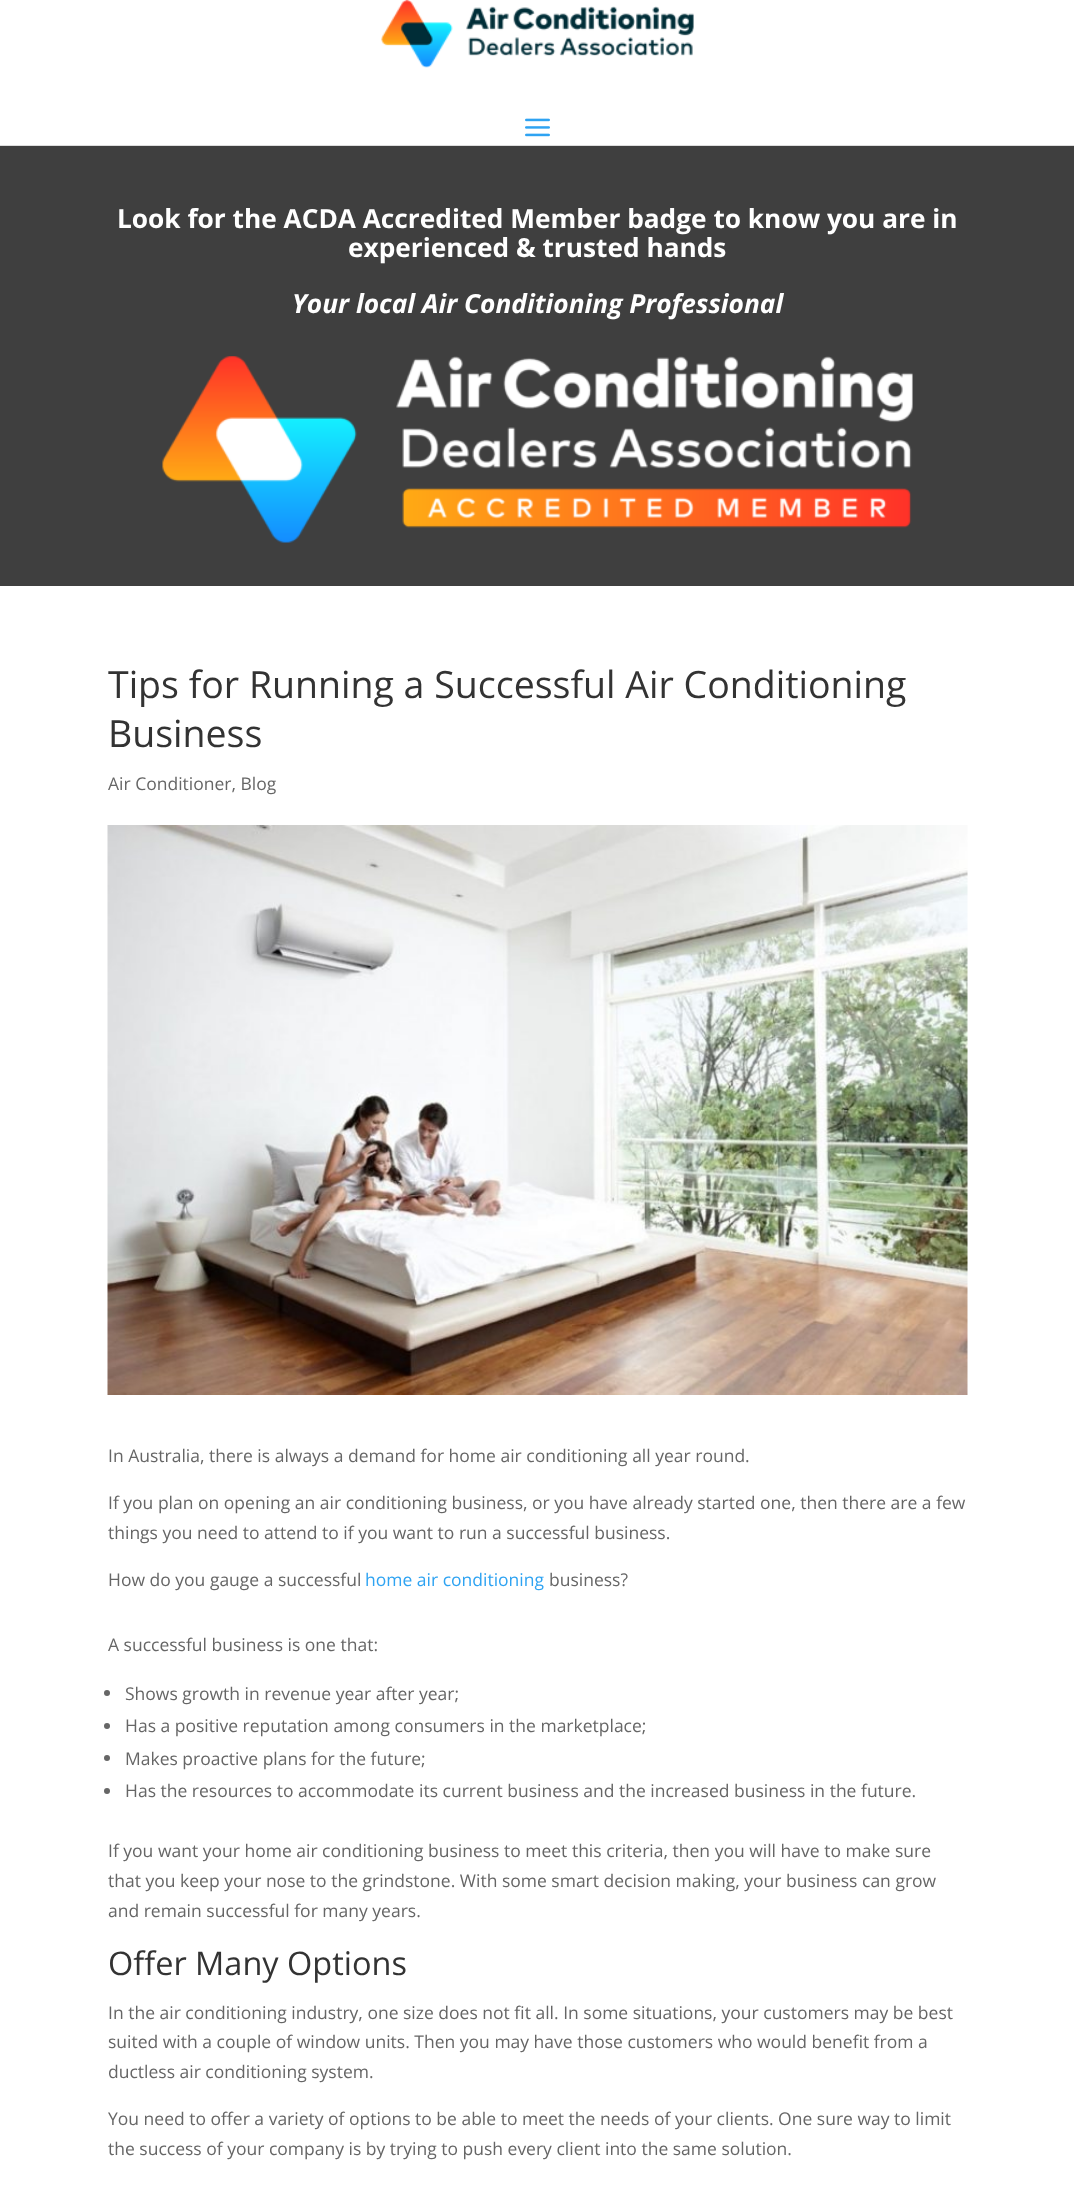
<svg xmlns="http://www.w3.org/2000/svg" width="1074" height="2193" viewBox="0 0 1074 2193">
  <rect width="100%" height="100%" fill="#ffffff"/>
  <rect x="0" y="145" width="1074" height="1" fill="#dddddd"/>
  <image x="381" y="0" width="313" height="68" href="img1.png"/>
  <image x="525" y="118" width="25" height="19" href="img2.png"/>
  <rect x="0" y="146" width="1074" height="440" fill="#3f3f3f"/>
  <text x="117" y="228" font-family="Open Sans" font-size="26.25" font-weight="bold" fill="#ffffff">Look for the ACDA Accredited Member badge to know you are in</text>
  <text x="348" y="257" font-family="Open Sans" font-size="26.25" font-weight="bold" fill="#ffffff">experienced &amp; trusted hands</text>
  <text x="292" y="313" font-family="Open Sans" font-size="26.25" font-weight="bold" font-style="italic" fill="#ffffff">Your local Air Conditioning Professional</text>
  <image x="162" y="356" width="751" height="187" href="img3.png"/>
  <text x="108" y="698" font-family="Open Sans" font-size="37.5" fill="#333333">Tips for Running a Successful Air Conditioning</text>
  <text x="108" y="747" font-family="Open Sans" font-size="37.5" fill="#333333">Business</text>
  <text x="108" y="790" font-family="Open Sans" font-size="17.5" fill="#666666">Air Conditioner, Blog</text>
  <image x="107" y="825" width="861" height="570" href="img4.png"/>
  <text x="108" y="1462" font-family="Open Sans" font-size="17.5" fill="#666666">In Australia, there is always a demand for home air conditioning all year round.</text>
  <text x="108" y="1509" font-family="Open Sans" font-size="17.5" fill="#666666">If you plan on opening an air conditioning business, or you have already started one, then there are a few</text>
  <text x="108" y="1539" font-family="Open Sans" font-size="17.5" fill="#666666">things you need to attend to if you want to run a successful business.</text>
  <text x="108" y="1586" font-family="Open Sans" font-size="17.5" fill="#666666">How do you gauge a successful</text>
  <text x="365" y="1586" font-family="Open Sans" font-size="17.5" fill="#2ea3f2">home air conditioning</text>
  <text x="549" y="1586" font-family="Open Sans" font-size="17.5" fill="#666666">business?</text>
  <text x="108" y="1651" font-family="Open Sans" font-size="17.5" fill="#666666">A successful business is one that:</text>
  <circle cx="107" cy="1693" r="3" fill="#666666"/>
  <text x="125" y="1700" font-family="Open Sans" font-size="17.5" fill="#666666">Shows growth in revenue year after year;</text>
  <circle cx="107" cy="1726" r="3" fill="#666666"/>
  <text x="125" y="1732" font-family="Open Sans" font-size="17.5" fill="#666666">Has a positive reputation among consumers in the marketplace;</text>
  <circle cx="107" cy="1758" r="3" fill="#666666"/>
  <text x="125" y="1765" font-family="Open Sans" font-size="17.5" fill="#666666">Makes proactive plans for the future;</text>
  <circle cx="107" cy="1791" r="3" fill="#666666"/>
  <text x="125" y="1797" font-family="Open Sans" font-size="17.5" fill="#666666">Has the resources to accommodate its current business and the increased business in the future.</text>
  <text x="108" y="1857" font-family="Open Sans" font-size="17.5" fill="#666666">If you want your home air conditioning business to meet this criteria, then you will have to make sure</text>
  <text x="108" y="1887" font-family="Open Sans" font-size="17.5" fill="#666666">that you keep your nose to the grindstone. With some smart decision making, your business can grow</text>
  <text x="108" y="1917" font-family="Open Sans" font-size="17.5" fill="#666666">and remain successful for many years.</text>
  <text x="108" y="1975" font-family="Open Sans" font-size="32.5" fill="#333333">Offer Many Options</text>
  <text x="108" y="2019" font-family="Open Sans" font-size="17.5" fill="#666666">In the air conditioning industry, one size does not fit all. In some situations, your customers may be best</text>
  <text x="108" y="2048" font-family="Open Sans" font-size="17.5" fill="#666666">suited with a couple of window units. Then you may have those customers who would benefit from a</text>
  <text x="108" y="2078" font-family="Open Sans" font-size="17.5" fill="#666666">ductless air conditioning system.</text>
  <text x="108" y="2125" font-family="Open Sans" font-size="17.5" fill="#666666">You need to offer a variety of options to be able to meet the needs of your clients. One sure way to limit</text>
  <text x="108" y="2155" font-family="Open Sans" font-size="17.5" fill="#666666">the success of your company is by trying to push every client into the same solution.</text>
</svg>
